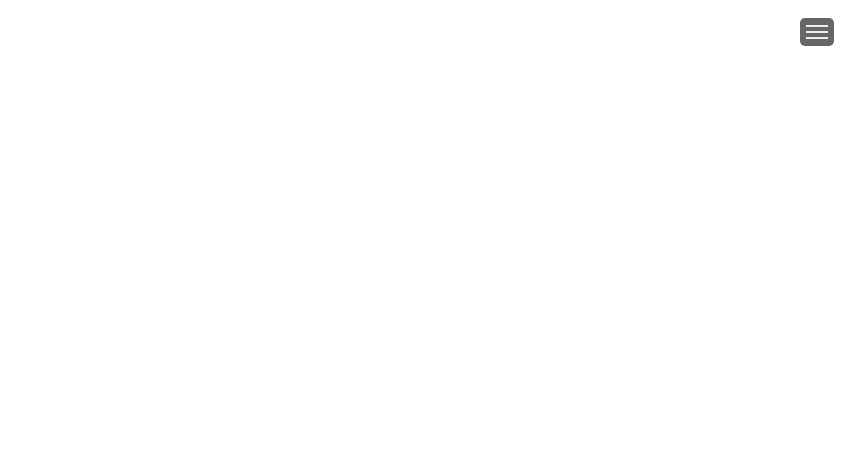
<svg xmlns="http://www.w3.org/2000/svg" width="862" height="472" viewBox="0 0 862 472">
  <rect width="100%" height="100%" fill="#ffffff"/>
  <rect x="800" y="18" width="34" height="28" rx="5" fill="#666666"/>
  <rect x="806" y="25" width="22" height="2" fill="#eeeeee"/>
  <rect x="806" y="37" width="22" height="2" fill="#eeeeee"/>
  <rect x="806" y="31" width="22" height="2" fill="#eeeeee"/>
</svg>
